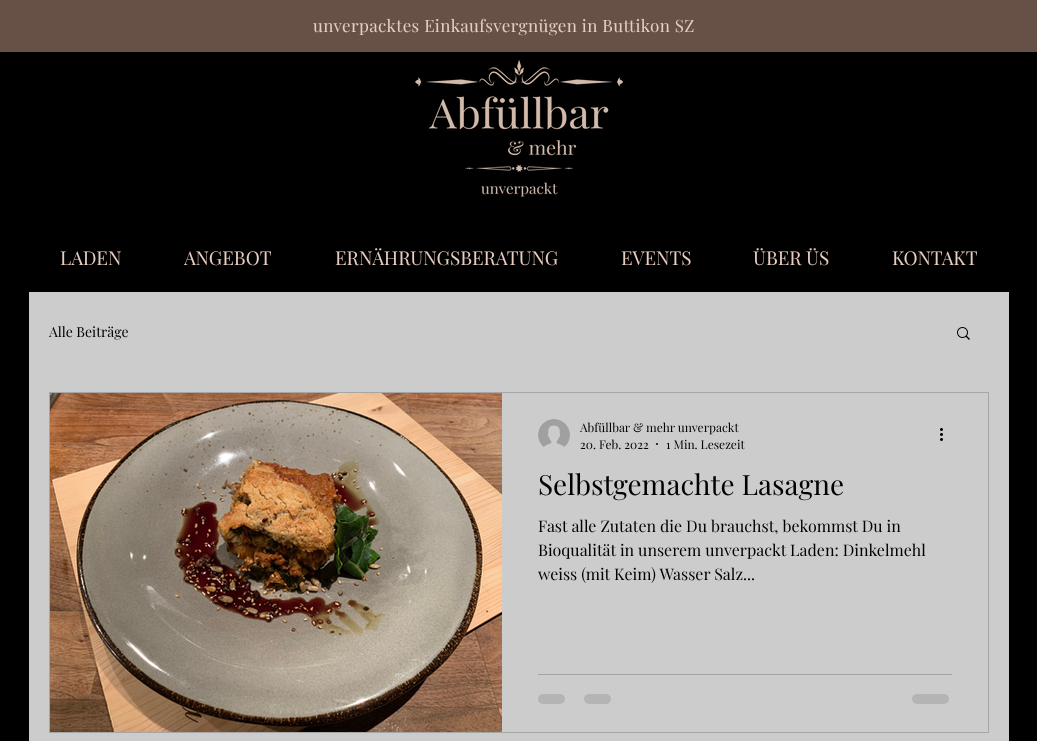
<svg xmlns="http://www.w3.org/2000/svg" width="1037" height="741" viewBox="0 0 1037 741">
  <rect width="100%" height="100%" fill="#000000"/>
  <rect x="0" y="0" width="1037" height="52" fill="#675045"/>
  <text x="313" y="32" font-family="Playfair Display" font-size="17" letter-spacing="0.35" fill="#e7cdc0">unverpacktes Einkaufsvergnügen in Buttikon SZ</text>
  <image x="415" y="60" width="209" height="137" href="img1.png"/>
  <text x="60" y="265" font-family="Playfair Display" font-size="19" fill="#e7cdc0">LADEN</text>
  <text x="184" y="265" font-family="Playfair Display" font-size="19" fill="#e7cdc0">ANGEBOT</text>
  <text x="335" y="265" font-family="Playfair Display" font-size="19" fill="#e7cdc0">ERNÄHRUNGSBERATUNG</text>
  <text x="621" y="265" font-family="Playfair Display" font-size="19" fill="#e7cdc0">EVENTS</text>
  <text x="753" y="265" font-family="Playfair Display" font-size="19" fill="#e7cdc0">ÜBER ÜS</text>
  <text x="892" y="265" font-family="Playfair Display" font-size="19" fill="#e7cdc0">KONTAKT</text>
  <rect x="29" y="292" width="980" height="449" fill="#cccccc"/>
  <text x="49" y="337" font-family="Playfair Display" font-size="14" fill="#000000">Alle Beiträge</text>
  <image x="957" y="327" width="13" height="13" href="img2.png"/>
  <rect x="49.5" y="392.5" width="939" height="340" fill="none" stroke="#a6a6a6"/>
  <image x="50" y="393" width="452" height="339" href="img3.png"/>
  <image x="538" y="419" width="32" height="28" href="img4.png"/>
  <text x="580" y="432" font-family="Playfair Display" font-size="12" fill="#000000">Abfüllbar &amp; mehr unverpackt</text>
  <text x="580" y="449" font-family="Playfair Display" font-size="12" fill="#000000">20. Feb. 2022</text>
  <circle cx="657" cy="444" r="1" fill="#000000"/>
  <text x="666" y="449" font-family="Playfair Display" font-size="12" fill="#000000">1 Min. Lesezeit</text>
  <image x="940" y="428" width="3" height="13" href="img5.png"/>
  <text x="538" y="495" font-family="Playfair Display" font-size="28" fill="#000000">Selbstgemachte Lasagne</text>
  <text x="538" y="532" font-family="Playfair Display" font-size="16" fill="#000000">Fast alle Zutaten die Du brauchst, bekommst Du in</text>
  <text x="538" y="556" font-family="Playfair Display" font-size="16" fill="#000000">Bioqualität in unserem unverpackt Laden: Dinkelmehl</text>
  <text x="538" y="580" font-family="Playfair Display" font-size="16" fill="#000000">weiss (mit Keim) Wasser Salz...</text>
  <rect x="538" y="674" width="414" height="1" fill="#a3a3a3"/>
  <rect x="538" y="694" width="27" height="10" rx="5" fill="#b4b4b4"/>
  <rect x="584" y="694" width="27" height="10" rx="5" fill="#b4b4b4"/>
  <rect x="912" y="694" width="37" height="10" rx="5" fill="#b4b4b4"/>
</svg>
